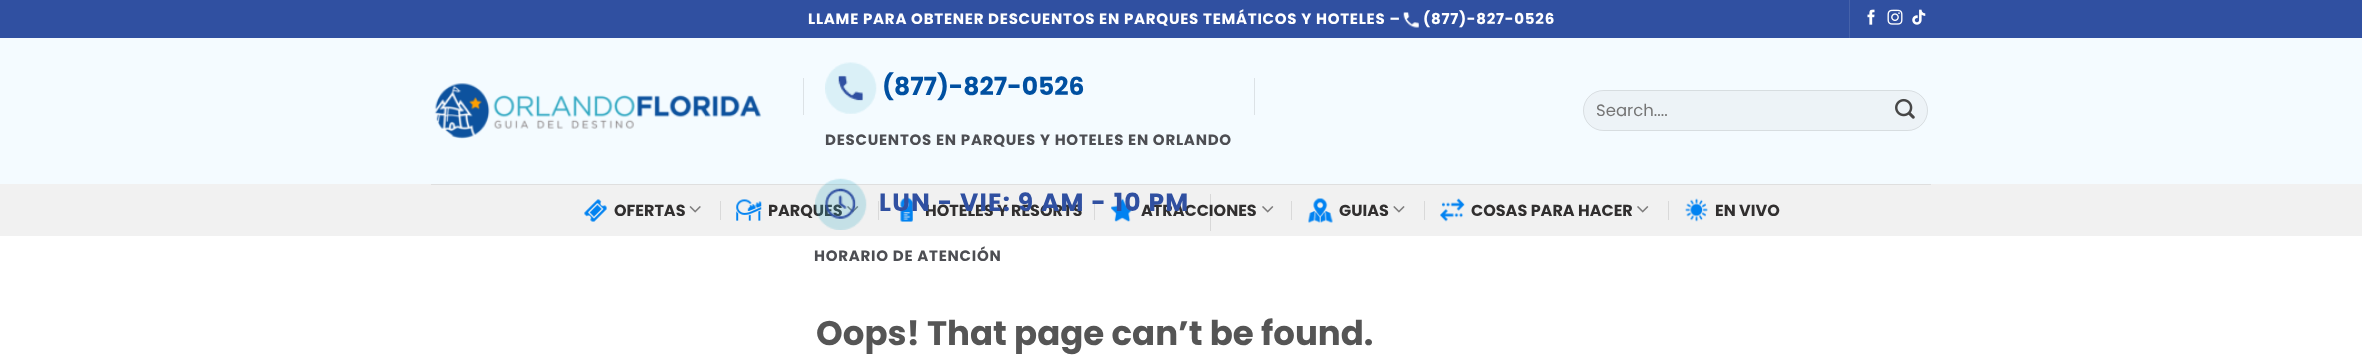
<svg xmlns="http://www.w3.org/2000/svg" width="2362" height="363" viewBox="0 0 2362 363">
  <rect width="100%" height="100%" fill="#ffffff"/>
  <rect x="0" y="0" width="2362" height="38" fill="#3050a1"/>
  <text x="808" y="24" font-family="Poppins" font-size="15" font-weight="bold" letter-spacing="0.75" fill="#ffffff">LLAME PARA OBTENER DESCUENTOS EN PARQUES TEMÁTICOS Y HOTELES –</text>
  <image x="1403" y="12" width="16" height="16" href="img1.png"/>
  <text x="1423" y="24" font-family="Poppins" font-size="15" font-weight="bold" letter-spacing="0.75" fill="#ffffff">(877)-827-0526</text>
  <rect x="1849" y="0" width="1" height="38" fill="#4562aa"/>
  <image x="1867" y="9" width="8" height="16" href="img2.png"/>
  <image x="1887" y="9" width="16" height="16" href="img3.png"/>
  <image x="1912" y="9" width="14" height="16" href="img4.png"/>
  <rect x="0" y="38" width="2362" height="146" fill="#f4fbff"/>
  <image x="434" y="83" width="328" height="56" href="img5.png"/>
  <rect x="803" y="78" width="1" height="37" fill="#dce2e6"/>
  <image x="825" y="62" width="52" height="52" href="img6.png"/>
  <text x="882" y="95" font-family="Poppins" font-size="25" font-weight="bold" fill="#0050a1">(877)-827-0526</text>
  <text x="825" y="145" font-family="Poppins" font-size="15" font-weight="bold" letter-spacing="0.75" fill="#4d4e53">DESCUENTOS EN PARQUES Y HOTELES EN ORLANDO</text>
  <rect x="1254" y="78" width="1" height="37" fill="#dce2e6"/>
  <rect x="0" y="184" width="2362" height="52" fill="#f1f1f1"/>
  <text x="768" y="216" font-family="Poppins" font-size="16" font-weight="bold" fill="#312f2f">PARQUES</text>
  <image x="847" y="206" width="12" height="7" href="img12.png"/>
  <image x="815" y="178" width="52" height="52" href="img7.png"/>
  <image x="900" y="197" width="13" height="25" href="img13.png"/>
  <text x="925" y="216" font-family="Poppins" font-size="16" font-weight="bold" fill="#312f2f">HOTELES Y RESORTS</text>
  <rect x="1094" y="201" width="1" height="19" fill="#d9d9d9"/>
  <image x="1111" y="198" width="23" height="24" href="img14.png"/>
  <text x="1141" y="216" font-family="Poppins" font-size="16" font-weight="bold" fill="#312f2f">ATRACCIONES</text>
  <text x="879" y="211" font-family="Poppins" font-size="25" font-weight="bold" letter-spacing="1.25" fill="#3050a1">LUN - VIE: 9 AM - 10 PM</text>
  <text x="814" y="261" font-family="Poppins" font-size="15" font-weight="bold" letter-spacing="0.75" fill="#4d4e53">HORARIO DE ATENCIÓN</text>
  <rect x="1210" y="194" width="1" height="37" fill="#000000" fill-opacity="0.1"/>
  <rect x="1583" y="90" width="345" height="41" rx="20.5" fill="#edf3f7"/>
  <rect x="1583.5" y="90.5" width="344" height="40" rx="20" fill="none" stroke="#000000" stroke-opacity="0.09"/>
  <text x="1596" y="116" font-family="Poppins" font-size="16.5" fill="#757575">Search....</text>
  <image x="1895" y="98" width="20" height="21" href="img8.png"/>
  <rect x="431" y="184" width="1500" height="1" fill="#474747" fill-opacity="0.1"/>
  <image x="584" y="199" width="23" height="23" href="img9.png"/>
  <text x="614" y="216" font-family="Poppins" font-size="16" font-weight="bold" fill="#312f2f">OFERTAS</text>
  <image x="689" y="206" width="12" height="7" href="img10.png"/>
  <rect x="720" y="201" width="1" height="19" fill="#d9d9d9"/>
  <image x="736" y="199" width="26" height="22" href="img11.png"/>
  <rect x="878" y="201" width="1" height="19" fill="#d9d9d9"/>
  <image x="1262" y="206" width="12" height="7" href="img12.png"/>
  <rect x="1291" y="201" width="1" height="19" fill="#d9d9d9"/>
  <image x="1308" y="198" width="25" height="25" href="img15.png"/>
  <text x="1339" y="216" font-family="Poppins" font-size="16" font-weight="bold" fill="#312f2f">GUIAS</text>
  <image x="1393" y="206" width="12" height="7" href="img16.png"/>
  <rect x="1424" y="201" width="1" height="19" fill="#d9d9d9"/>
  <image x="1440" y="198" width="25" height="24" href="img17.png"/>
  <text x="1471" y="216" font-family="Poppins" font-size="16" font-weight="bold" fill="#312f2f">COSAS PARA HACER</text>
  <image x="1637" y="206" width="12" height="7" href="img12.png"/>
  <rect x="1668" y="201" width="1" height="19" fill="#d9d9d9"/>
  <image x="1685" y="198" width="23" height="24" href="img18.png"/>
  <text x="1715" y="216" font-family="Poppins" font-size="16" font-weight="bold" fill="#312f2f">EN VIVO</text>
  <text x="816" y="345" font-family="Poppins" font-size="34" font-weight="bold" fill="#555555">Oops! That page can’t be found.</text>
</svg>
